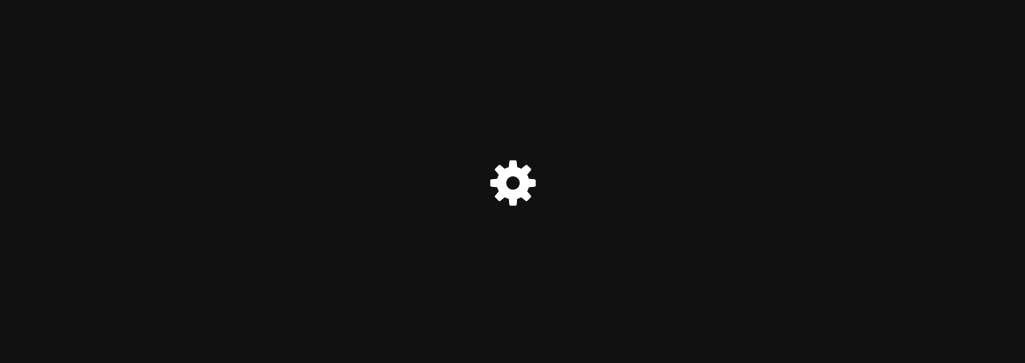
<svg xmlns="http://www.w3.org/2000/svg" width="1025" height="363" viewBox="0 0 1025 363">
  <rect width="100%" height="100%" fill="#111111"/>
  <image x="490" y="160" width="46" height="46" href="img1.png"/>
</svg>
